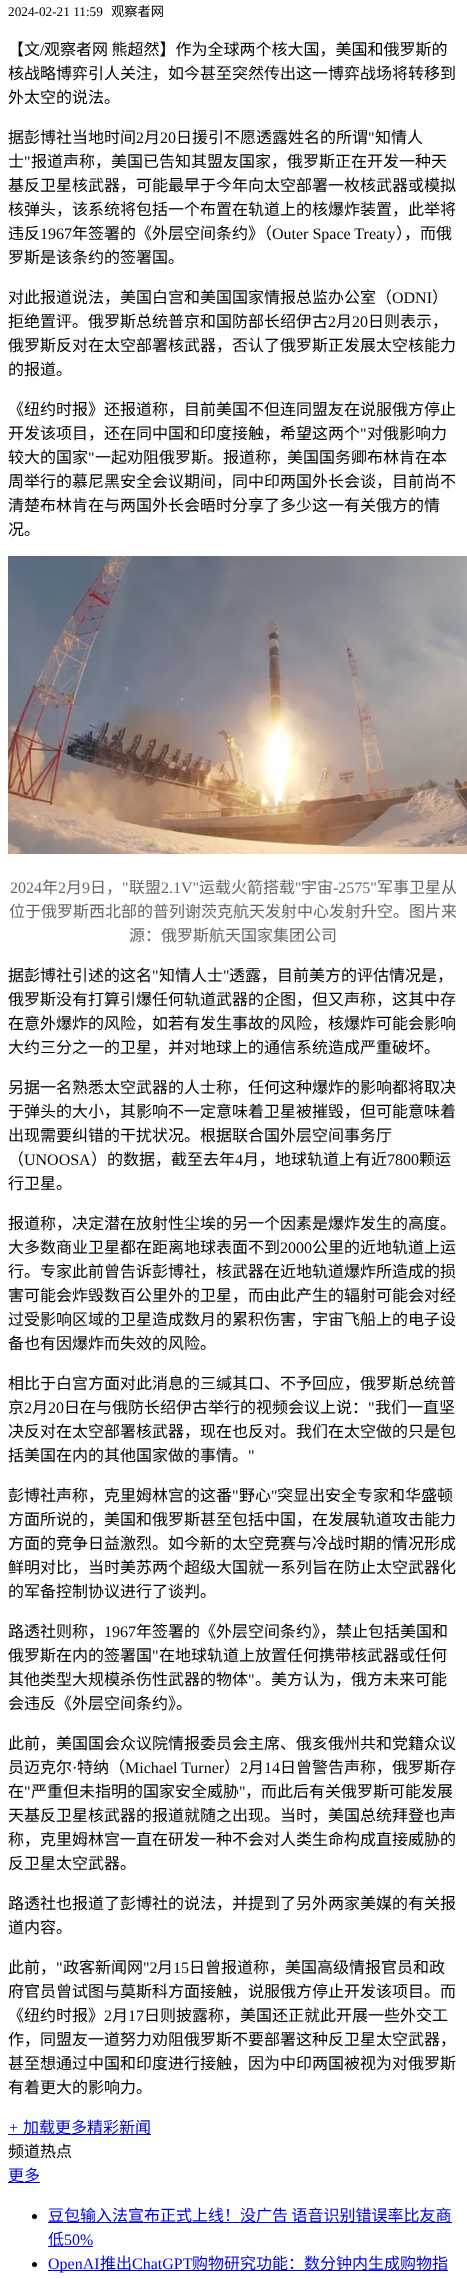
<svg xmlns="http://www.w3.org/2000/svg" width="467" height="2279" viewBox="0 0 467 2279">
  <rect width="100%" height="100%" fill="#ffffff"/>
  <text x="8" y="16" font-family="Liberation Serif" font-size="13.25" fill="#000000">2024-02-21 11:59</text>
  <text x="111" y="16" font-family="Noto Sans CJK SC" font-size="13.25" fill="#000000">观察者网</text>
  <text x="8" y="55" font-family="Noto Sans CJK SC" font-size="16" fill="#000000">【文</text>
  <text x="40" y="55" font-family="Liberation Serif" font-size="16" fill="#000000">/</text>
  <text x="44" y="55" font-family="Noto Sans CJK SC" font-size="16" fill="#000000">观察者网 熊超然】作为全球两个核大国，美国和俄罗斯的</text>
  <text x="8" y="79" font-family="Noto Sans CJK SC" font-size="16" fill="#000000">核战略博弈引人关注，如今甚至突然传出这一博弈战场将转移到</text>
  <text x="8" y="103" font-family="Noto Sans CJK SC" font-size="16" fill="#000000">外太空的说法。</text>
  <text x="8" y="143" font-family="Noto Sans CJK SC" font-size="16" fill="#000000">据彭博社当地时间</text>
  <text x="136" y="143" font-family="Liberation Serif" font-size="16" fill="#000000">2</text>
  <text x="144" y="143" font-family="Noto Sans CJK SC" font-size="16" fill="#000000">月</text>
  <text x="160" y="143" font-family="Liberation Serif" font-size="16" fill="#000000">20</text>
  <text x="176" y="143" font-family="Noto Sans CJK SC" font-size="16" fill="#000000">日援引不愿透露姓名的所谓</text>
  <text x="368" y="143" font-family="Liberation Serif" font-size="16" fill="#000000">"</text>
  <text x="375" y="143" font-family="Noto Sans CJK SC" font-size="16" fill="#000000">知情人</text>
  <text x="8" y="167" font-family="Noto Sans CJK SC" font-size="16" fill="#000000">士</text>
  <text x="24" y="167" font-family="Liberation Serif" font-size="16" fill="#000000">"</text>
  <text x="31" y="167" font-family="Noto Sans CJK SC" font-size="16" fill="#000000">报道声称，美国已告知其盟友国家，俄罗斯正在开发一种天</text>
  <text x="8" y="191" font-family="Noto Sans CJK SC" font-size="16" fill="#000000">基反卫星核武器，可能最早于今年向太空部署一枚核武器或模拟</text>
  <text x="8" y="215" font-family="Noto Sans CJK SC" font-size="16" fill="#000000">核弹头，该系统将包括一个布置在轨道上的核爆炸装置，此举将</text>
  <text x="8" y="239" font-family="Noto Sans CJK SC" font-size="16" fill="#000000">违反</text>
  <text x="40" y="239" font-family="Liberation Serif" font-size="16" fill="#000000">1967</text>
  <text x="72" y="239" font-family="Noto Sans CJK SC" font-size="16" fill="#000000">年签署的《外层空间条约》（</text>
  <text x="272" y="239" font-family="Liberation Serif" font-size="16" fill="#000000">Outer Space Treaty</text>
  <text x="396" y="239" font-family="Noto Sans CJK SC" font-size="16" fill="#000000">），而俄</text>
  <text x="8" y="263" font-family="Noto Sans CJK SC" font-size="16" fill="#000000">罗斯是该条约的签署国。</text>
  <text x="8" y="303" font-family="Noto Sans CJK SC" font-size="16" fill="#000000">对此报道说法，美国白宫和美国国家情报总监办公室（</text>
  <text x="392" y="303" font-family="Liberation Serif" font-size="16" fill="#000000">ODNI</text>
  <text x="432" y="303" font-family="Noto Sans CJK SC" font-size="16" fill="#000000">）</text>
  <text x="8" y="327" font-family="Noto Sans CJK SC" font-size="16" fill="#000000">拒绝置评。俄罗斯总统普京和国防部长绍伊古</text>
  <text x="328" y="327" font-family="Liberation Serif" font-size="16" fill="#000000">2</text>
  <text x="336" y="327" font-family="Noto Sans CJK SC" font-size="16" fill="#000000">月</text>
  <text x="352" y="327" font-family="Liberation Serif" font-size="16" fill="#000000">20</text>
  <text x="368" y="327" font-family="Noto Sans CJK SC" font-size="16" fill="#000000">日则表示，</text>
  <text x="8" y="351" font-family="Noto Sans CJK SC" font-size="16" fill="#000000">俄罗斯反对在太空部署核武器，否认了俄罗斯正发展太空核能力</text>
  <text x="8" y="375" font-family="Noto Sans CJK SC" font-size="16" fill="#000000">的报道。</text>
  <text x="8" y="415" font-family="Noto Sans CJK SC" font-size="16" fill="#000000">《纽约时报》还报道称，目前美国不但连同盟友在说服俄方停止</text>
  <text x="8" y="439" font-family="Noto Sans CJK SC" font-size="16" fill="#000000">开发该项目，还在同中国和印度接触，希望这两个</text>
  <text x="360" y="439" font-family="Liberation Serif" font-size="16" fill="#000000">"</text>
  <text x="367" y="439" font-family="Noto Sans CJK SC" font-size="16" fill="#000000">对俄影响力</text>
  <text x="8" y="463" font-family="Noto Sans CJK SC" font-size="16" fill="#000000">较大的国家</text>
  <text x="88" y="463" font-family="Liberation Serif" font-size="16" fill="#000000">"</text>
  <text x="95" y="463" font-family="Noto Sans CJK SC" font-size="16" fill="#000000">一起劝阻俄罗斯。报道称，美国国务卿布林肯在本</text>
  <text x="8" y="487" font-family="Noto Sans CJK SC" font-size="16" fill="#000000">周举行的慕尼黑安全会议期间，同中印两国外长会谈，目前尚不</text>
  <text x="8" y="511" font-family="Noto Sans CJK SC" font-size="16" fill="#000000">清楚布林肯在与两国外长会晤时分享了多少这一有关俄方的情</text>
  <text x="8" y="535" font-family="Noto Sans CJK SC" font-size="16" fill="#000000">况。</text>
  <image x="8" y="556" width="459" height="298" href="img1.png"/>
  <text x="10" y="893" font-family="Liberation Serif" font-size="16" fill="#666666">2024</text>
  <text x="42" y="893" font-family="Noto Sans CJK SC" font-size="16" fill="#666666">年</text>
  <text x="58" y="893" font-family="Liberation Serif" font-size="16" fill="#666666">2</text>
  <text x="66" y="893" font-family="Noto Sans CJK SC" font-size="16" fill="#666666">月</text>
  <text x="82" y="893" font-family="Liberation Serif" font-size="16" fill="#666666">9</text>
  <text x="90" y="893" font-family="Noto Sans CJK SC" font-size="16" fill="#666666">日，</text>
  <text x="122" y="893" font-family="Liberation Serif" font-size="16" fill="#666666">"</text>
  <text x="129" y="893" font-family="Noto Sans CJK SC" font-size="16" fill="#666666">联盟</text>
  <text x="161" y="893" font-family="Liberation Serif" font-size="16" fill="#666666">2.1V"</text>
  <text x="199" y="893" font-family="Noto Sans CJK SC" font-size="16" fill="#666666">运载火箭搭载</text>
  <text x="295" y="893" font-family="Liberation Serif" font-size="16" fill="#666666">"</text>
  <text x="301" y="893" font-family="Noto Sans CJK SC" font-size="16" fill="#666666">宇宙</text>
  <text x="333" y="893" font-family="Liberation Serif" font-size="16" fill="#666666">-2575"</text>
  <text x="377" y="893" font-family="Noto Sans CJK SC" font-size="16" fill="#666666">军事卫星从</text>
  <text x="9" y="917" font-family="Noto Sans CJK SC" font-size="16" fill="#666666">位于俄罗斯西北部的普列谢茨克航天发射中心发射升空。图片来</text>
  <text x="129" y="941" font-family="Noto Sans CJK SC" font-size="16" fill="#666666">源：俄罗斯航天国家集团公司</text>
  <text x="8" y="981" font-family="Noto Sans CJK SC" font-size="16" fill="#000000">据彭博社引述的这名</text>
  <text x="152" y="981" font-family="Liberation Serif" font-size="16" fill="#000000">"</text>
  <text x="159" y="981" font-family="Noto Sans CJK SC" font-size="16" fill="#000000">知情人士</text>
  <text x="223" y="981" font-family="Liberation Serif" font-size="16" fill="#000000">"</text>
  <text x="229" y="981" font-family="Noto Sans CJK SC" font-size="16" fill="#000000">透露，目前美方的评估情况是，</text>
  <text x="8" y="1005" font-family="Noto Sans CJK SC" font-size="16" fill="#000000">俄罗斯没有打算引爆任何轨道武器的企图，但又声称，这其中存</text>
  <text x="8" y="1029" font-family="Noto Sans CJK SC" font-size="16" fill="#000000">在意外爆炸的风险，如若有发生事故的风险，核爆炸可能会影响</text>
  <text x="8" y="1053" font-family="Noto Sans CJK SC" font-size="16" fill="#000000">大约三分之一的卫星，并对地球上的通信系统造成严重破坏。</text>
  <text x="8" y="1093" font-family="Noto Sans CJK SC" font-size="16" fill="#000000">另据一名熟悉太空武器的人士称，任何这种爆炸的影响都将取决</text>
  <text x="8" y="1117" font-family="Noto Sans CJK SC" font-size="16" fill="#000000">于弹头的大小，其影响不一定意味着卫星被摧毁，但可能意味着</text>
  <text x="8" y="1141" font-family="Noto Sans CJK SC" font-size="16" fill="#000000">出现需要纠错的干扰状况。根据联合国外层空间事务厅</text>
  <text x="8" y="1165" font-family="Noto Sans CJK SC" font-size="16" fill="#000000">（</text>
  <text x="24" y="1165" font-family="Liberation Serif" font-size="16" fill="#000000">UNOOSA</text>
  <text x="91" y="1165" font-family="Noto Sans CJK SC" font-size="16" fill="#000000">）的数据，截至去年</text>
  <text x="235" y="1165" font-family="Liberation Serif" font-size="16" fill="#000000">4</text>
  <text x="243" y="1165" font-family="Noto Sans CJK SC" font-size="16" fill="#000000">月，地球轨道上有近</text>
  <text x="387" y="1165" font-family="Liberation Serif" font-size="16" fill="#000000">7800</text>
  <text x="419" y="1165" font-family="Noto Sans CJK SC" font-size="16" fill="#000000">颗运</text>
  <text x="8" y="1189" font-family="Noto Sans CJK SC" font-size="16" fill="#000000">行卫星。</text>
  <text x="8" y="1229" font-family="Noto Sans CJK SC" font-size="16" fill="#000000">报道称，决定潜在放射性尘埃的另一个因素是爆炸发生的高度。</text>
  <text x="8" y="1253" font-family="Noto Sans CJK SC" font-size="16" fill="#000000">大多数商业卫星都在距离地球表面不到</text>
  <text x="280" y="1253" font-family="Liberation Serif" font-size="16" fill="#000000">2000</text>
  <text x="312" y="1253" font-family="Noto Sans CJK SC" font-size="16" fill="#000000">公里的近地轨道上运</text>
  <text x="8" y="1277" font-family="Noto Sans CJK SC" font-size="16" fill="#000000">行。专家此前曾告诉彭博社，核武器在近地轨道爆炸所造成的损</text>
  <text x="8" y="1301" font-family="Noto Sans CJK SC" font-size="16" fill="#000000">害可能会炸毁数百公里外的卫星，而由此产生的辐射可能会对经</text>
  <text x="8" y="1325" font-family="Noto Sans CJK SC" font-size="16" fill="#000000">过受影响区域的卫星造成数月的累积伤害，宇宙飞船上的电子设</text>
  <text x="8" y="1349" font-family="Noto Sans CJK SC" font-size="16" fill="#000000">备也有因爆炸而失效的风险。</text>
  <text x="8" y="1389" font-family="Noto Sans CJK SC" font-size="16" fill="#000000">相比于白宫方面对此消息的三缄其口、不予回应，俄罗斯总统普</text>
  <text x="8" y="1413" font-family="Noto Sans CJK SC" font-size="16" fill="#000000">京</text>
  <text x="24" y="1413" font-family="Liberation Serif" font-size="16" fill="#000000">2</text>
  <text x="32" y="1413" font-family="Noto Sans CJK SC" font-size="16" fill="#000000">月</text>
  <text x="48" y="1413" font-family="Liberation Serif" font-size="16" fill="#000000">20</text>
  <text x="64" y="1413" font-family="Noto Sans CJK SC" font-size="16" fill="#000000">日在与俄防长绍伊古举行的视频会议上说：</text>
  <text x="368" y="1413" font-family="Liberation Serif" font-size="16" fill="#000000">"</text>
  <text x="375" y="1413" font-family="Noto Sans CJK SC" font-size="16" fill="#000000">我们一直坚</text>
  <text x="8" y="1437" font-family="Noto Sans CJK SC" font-size="16" fill="#000000">决反对在太空部署核武器，现在也反对。我们在太空做的只是包</text>
  <text x="8" y="1461" font-family="Noto Sans CJK SC" font-size="16" fill="#000000">括美国在内的其他国家做的事情。</text>
  <text x="248" y="1461" font-family="Liberation Serif" font-size="16" fill="#000000">"</text>
  <text x="8" y="1501" font-family="Noto Sans CJK SC" font-size="16" fill="#000000">彭博社声称，克里姆林宫的这番</text>
  <text x="232" y="1501" font-family="Liberation Serif" font-size="16" fill="#000000">"</text>
  <text x="239" y="1501" font-family="Noto Sans CJK SC" font-size="16" fill="#000000">野心</text>
  <text x="271" y="1501" font-family="Liberation Serif" font-size="16" fill="#000000">"</text>
  <text x="277" y="1501" font-family="Noto Sans CJK SC" font-size="16" fill="#000000">突显出安全专家和华盛顿</text>
  <text x="8" y="1525" font-family="Noto Sans CJK SC" font-size="16" fill="#000000">方面所说的，美国和俄罗斯甚至包括中国，在发展轨道攻击能力</text>
  <text x="8" y="1549" font-family="Noto Sans CJK SC" font-size="16" fill="#000000">方面的竞争日益激烈。如今新的太空竞赛与冷战时期的情况形成</text>
  <text x="8" y="1573" font-family="Noto Sans CJK SC" font-size="16" fill="#000000">鲜明对比，当时美苏两个超级大国就一系列旨在防止太空武器化</text>
  <text x="8" y="1597" font-family="Noto Sans CJK SC" font-size="16" fill="#000000">的军备控制协议进行了谈判。</text>
  <text x="8" y="1637" font-family="Noto Sans CJK SC" font-size="16" fill="#000000">路透社则称，</text>
  <text x="104" y="1637" font-family="Liberation Serif" font-size="16" fill="#000000">1967</text>
  <text x="136" y="1637" font-family="Noto Sans CJK SC" font-size="16" fill="#000000">年签署的《外层空间条约》，禁止包括美国和</text>
  <text x="8" y="1661" font-family="Noto Sans CJK SC" font-size="16" fill="#000000">俄罗斯在内的签署国</text>
  <text x="152" y="1661" font-family="Liberation Serif" font-size="16" fill="#000000">"</text>
  <text x="159" y="1661" font-family="Noto Sans CJK SC" font-size="16" fill="#000000">在地球轨道上放置任何携带核武器或任何</text>
  <text x="8" y="1685" font-family="Noto Sans CJK SC" font-size="16" fill="#000000">其他类型大规模杀伤性武器的物体</text>
  <text x="248" y="1685" font-family="Liberation Serif" font-size="16" fill="#000000">"</text>
  <text x="255" y="1685" font-family="Noto Sans CJK SC" font-size="16" fill="#000000">。美方认为，俄方未来可能</text>
  <text x="8" y="1709" font-family="Noto Sans CJK SC" font-size="16" fill="#000000">会违反《外层空间条约》。</text>
  <text x="8" y="1749" font-family="Noto Sans CJK SC" font-size="16" fill="#000000">此前，美国国会众议院情报委员会主席、俄亥俄州共和党籍众议</text>
  <text x="8" y="1773" font-family="Noto Sans CJK SC" font-size="16" fill="#000000">员迈克尔</text>
  <text x="72" y="1773" font-family="Liberation Serif" font-size="16" fill="#000000">·</text>
  <text x="77" y="1773" font-family="Noto Sans CJK SC" font-size="16" fill="#000000">特纳（</text>
  <text x="125" y="1773" font-family="Liberation Serif" font-size="16" fill="#000000">Michael Turner</text>
  <text x="224" y="1773" font-family="Noto Sans CJK SC" font-size="16" fill="#000000">）</text>
  <text x="240" y="1773" font-family="Liberation Serif" font-size="16" fill="#000000">2</text>
  <text x="248" y="1773" font-family="Noto Sans CJK SC" font-size="16" fill="#000000">月</text>
  <text x="264" y="1773" font-family="Liberation Serif" font-size="16" fill="#000000">14</text>
  <text x="280" y="1773" font-family="Noto Sans CJK SC" font-size="16" fill="#000000">日曾警告声称，俄罗斯存</text>
  <text x="8" y="1797" font-family="Noto Sans CJK SC" font-size="16" fill="#000000">在</text>
  <text x="24" y="1797" font-family="Liberation Serif" font-size="16" fill="#000000">"</text>
  <text x="31" y="1797" font-family="Noto Sans CJK SC" font-size="16" fill="#000000">严重但未指明的国家安全威胁</text>
  <text x="239" y="1797" font-family="Liberation Serif" font-size="16" fill="#000000">"</text>
  <text x="245" y="1797" font-family="Noto Sans CJK SC" font-size="16" fill="#000000">，而此后有关俄罗斯可能发展</text>
  <text x="8" y="1821" font-family="Noto Sans CJK SC" font-size="16" fill="#000000">天基反卫星核武器的报道就随之出现。当时，美国总统拜登也声</text>
  <text x="8" y="1845" font-family="Noto Sans CJK SC" font-size="16" fill="#000000">称，克里姆林宫一直在研发一种不会对人类生命构成直接威胁的</text>
  <text x="8" y="1869" font-family="Noto Sans CJK SC" font-size="16" fill="#000000">反卫星太空武器。</text>
  <text x="8" y="1909" font-family="Noto Sans CJK SC" font-size="16" fill="#000000">路透社也报道了彭博社的说法，并提到了另外两家美媒的有关报</text>
  <text x="8" y="1933" font-family="Noto Sans CJK SC" font-size="16" fill="#000000">道内容。</text>
  <text x="8" y="1973" font-family="Noto Sans CJK SC" font-size="16" fill="#000000">此前，</text>
  <text x="56" y="1973" font-family="Liberation Serif" font-size="16" fill="#000000">"</text>
  <text x="63" y="1973" font-family="Noto Sans CJK SC" font-size="16" fill="#000000">政客新闻网</text>
  <text x="143" y="1973" font-family="Liberation Serif" font-size="16" fill="#000000">"2</text>
  <text x="157" y="1973" font-family="Noto Sans CJK SC" font-size="16" fill="#000000">月</text>
  <text x="173" y="1973" font-family="Liberation Serif" font-size="16" fill="#000000">15</text>
  <text x="189" y="1973" font-family="Noto Sans CJK SC" font-size="16" fill="#000000">日曾报道称，美国高级情报官员和政</text>
  <text x="8" y="1997" font-family="Noto Sans CJK SC" font-size="16" fill="#000000">府官员曾试图与莫斯科方面接触，说服俄方停止开发该项目。而</text>
  <text x="8" y="2021" font-family="Noto Sans CJK SC" font-size="16" fill="#000000">《纽约时报》</text>
  <text x="104" y="2021" font-family="Liberation Serif" font-size="16" fill="#000000">2</text>
  <text x="112" y="2021" font-family="Noto Sans CJK SC" font-size="16" fill="#000000">月</text>
  <text x="128" y="2021" font-family="Liberation Serif" font-size="16" fill="#000000">17</text>
  <text x="144" y="2021" font-family="Noto Sans CJK SC" font-size="16" fill="#000000">日则披露称，美国还正就此开展一些外交工</text>
  <text x="8" y="2045" font-family="Noto Sans CJK SC" font-size="16" fill="#000000">作，同盟友一道努力劝阻俄罗斯不要部署这种反卫星太空武器，</text>
  <text x="8" y="2069" font-family="Noto Sans CJK SC" font-size="16" fill="#000000">甚至想通过中国和印度进行接触，因为中印两国被视为对俄罗斯</text>
  <text x="8" y="2093" font-family="Noto Sans CJK SC" font-size="16" fill="#000000">有着更大的影响力。</text>
  <text x="8" y="2133" font-family="Liberation Serif" font-size="16" font-style="italic" fill="#0000ee">+</text>
  <rect x="8" y="2134" width="143" height="1" fill="#0000ee"/>
  <text x="23" y="2133" font-family="Noto Sans CJK SC" font-size="16" fill="#0000ee">加载更多精彩新闻</text>
  <text x="8" y="2157" font-family="Noto Sans CJK SC" font-size="16" fill="#000000">频道热点</text>
  <rect x="8" y="2182" width="32" height="1" fill="#0000ee"/>
  <text x="8" y="2181" font-family="Noto Sans CJK SC" font-size="16" fill="#0000ee">更多</text>
  <circle cx="34.5" cy="2216.5" r="2.5" fill="#000000"/>
  <rect x="48" y="2222" width="404" height="1" fill="#0000ee"/>
  <text x="48" y="2221" font-family="Noto Sans CJK SC" font-size="16" fill="#0000ee">豆包输入法宣布正式上线！没广告 语音识别错误率比友商</text>
  <rect x="48" y="2246" width="45" height="1" fill="#0000ee"/>
  <text x="48" y="2245" font-family="Noto Sans CJK SC" font-size="16" fill="#0000ee">低</text>
  <text x="64" y="2245" font-family="Liberation Serif" font-size="16" fill="#0000ee">50%</text>
  <circle cx="34.5" cy="2264.5" r="2.5" fill="#000000"/>
  <rect x="48" y="2270" width="400" height="1" fill="#0000ee"/>
  <text x="48" y="2269" font-family="Liberation Serif" font-size="16" fill="#0000ee">OpenAI</text>
  <text x="100" y="2269" font-family="Noto Sans CJK SC" font-size="16" fill="#0000ee">推出</text>
  <text x="132" y="2269" font-family="Liberation Serif" font-size="16" fill="#0000ee">ChatGPT</text>
  <text x="192" y="2269" font-family="Noto Sans CJK SC" font-size="16" fill="#0000ee">购物研究功能：数分钟内生成购物指</text>
</svg>
